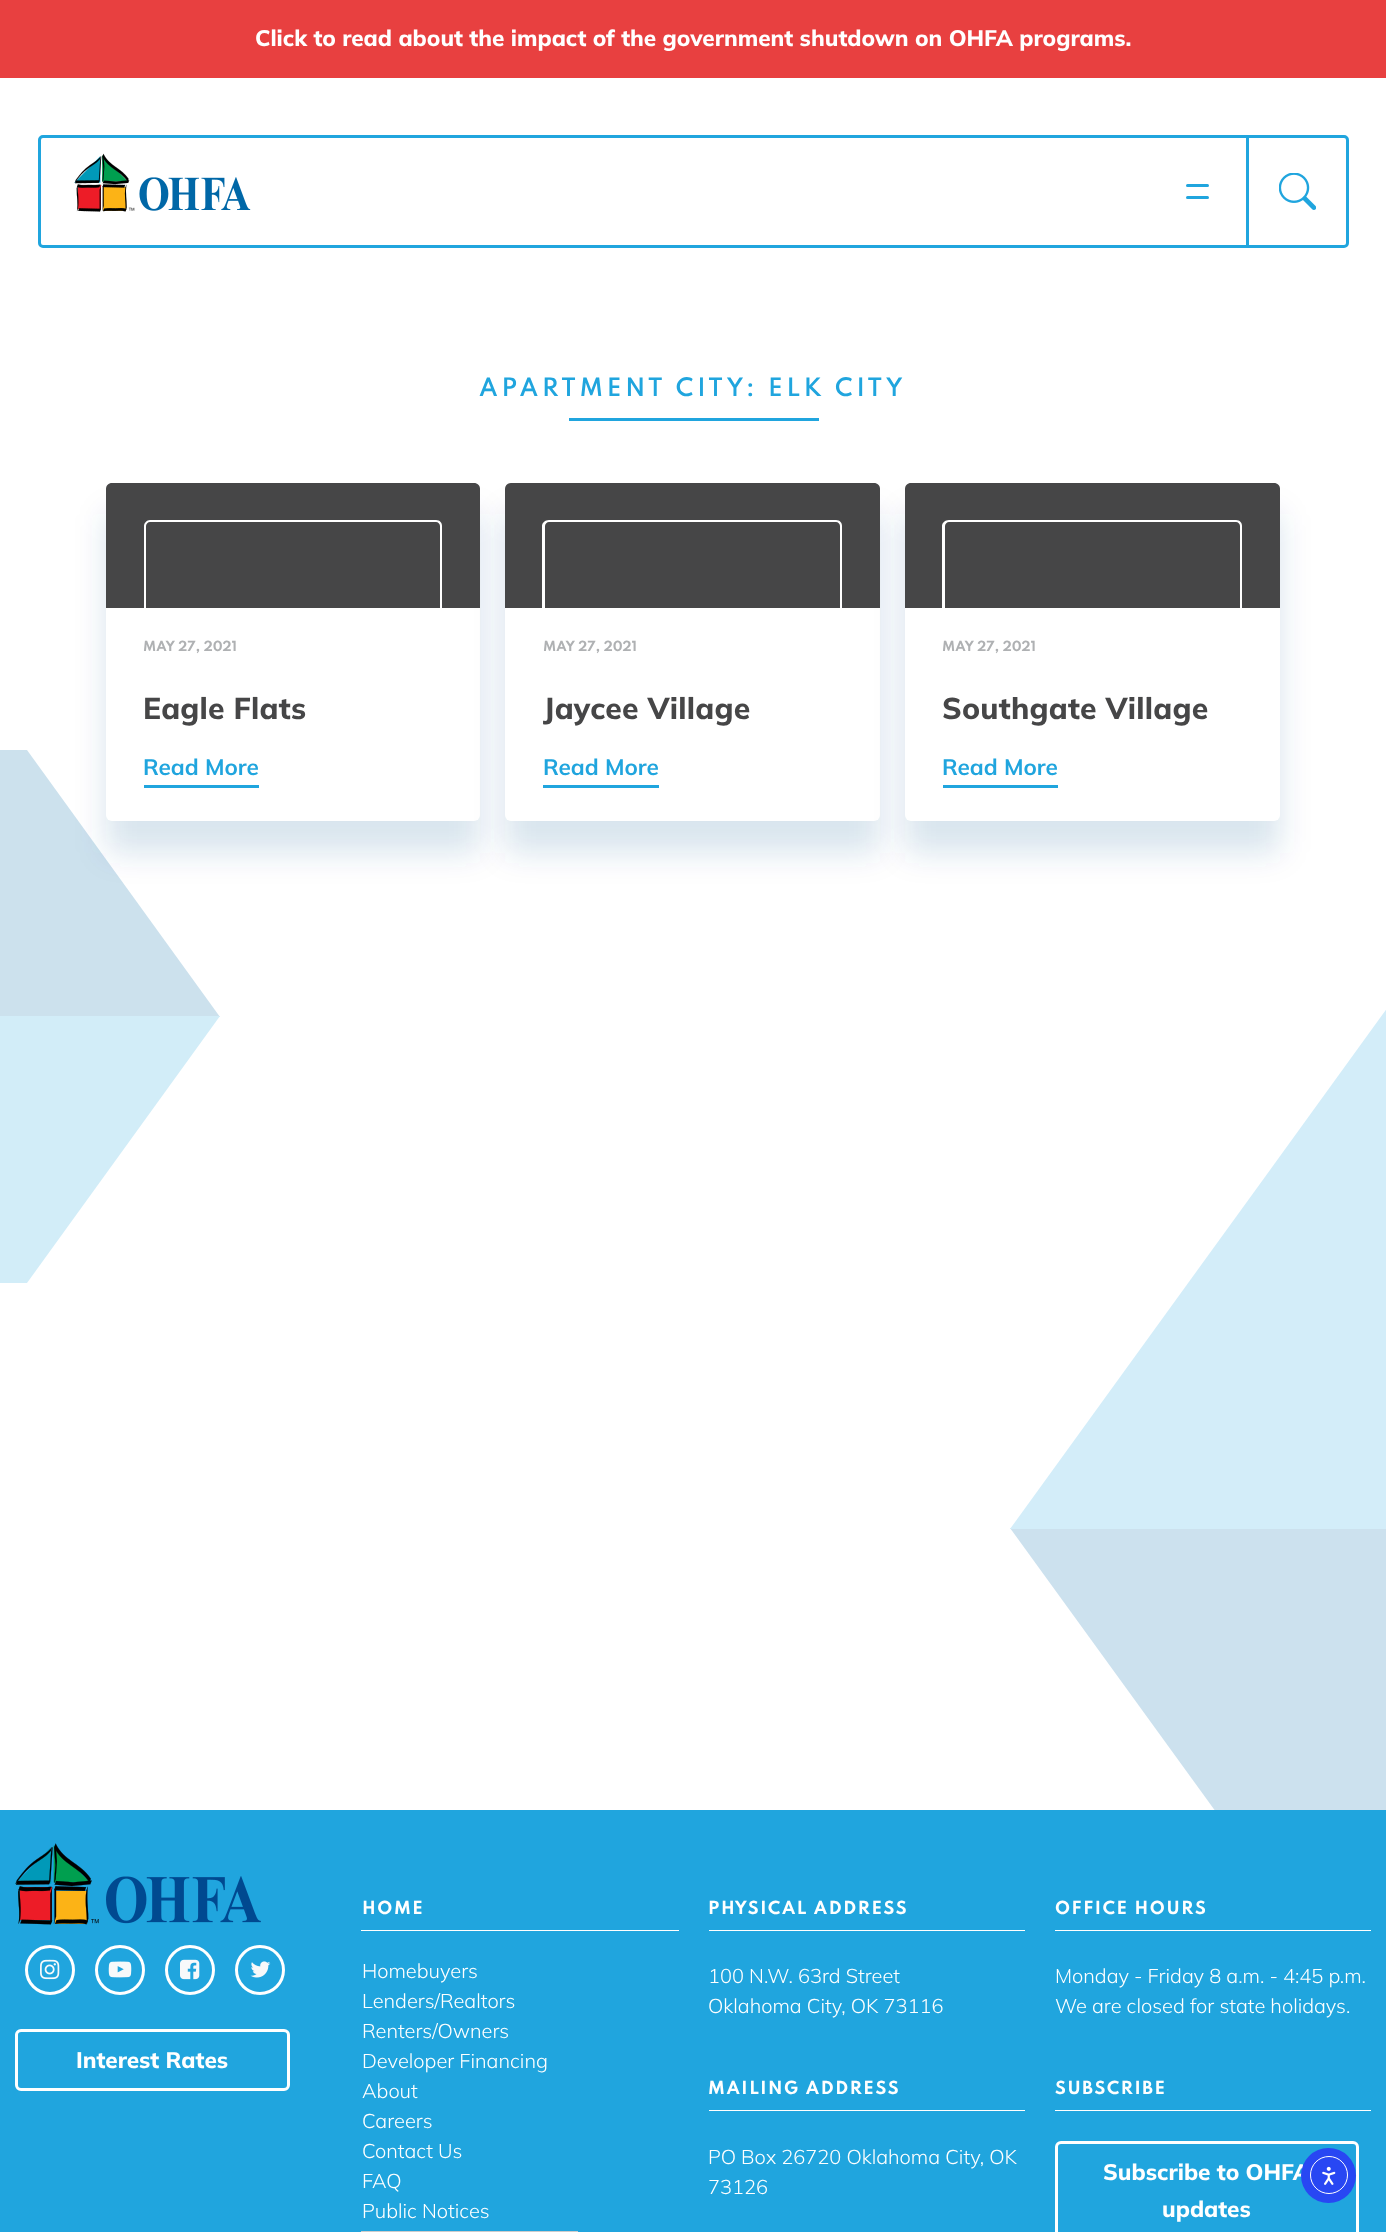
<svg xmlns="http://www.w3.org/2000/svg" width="1386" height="2232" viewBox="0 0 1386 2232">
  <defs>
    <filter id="blur1" x="-50%" y="-200%" width="200%" height="500%"><feGaussianBlur stdDeviation="15.5"/></filter>
  </defs>
  <rect width="100%" height="100%" fill="#ffffff"/>
  <rect x="0" y="0" width="1386" height="78" fill="#e84040"/>
  <text x="255" y="46" font-family="Mulish" font-size="22.5" font-weight="800" fill="#ffffff">Click to read about the impact of the government shutdown on OHFA programs.</text>
  <rect x="39.5" y="136.5" width="1308" height="110" rx="3.5" fill="none" stroke="#20a5de" stroke-width="3"/>
  <image x="74" y="153" width="177" height="59" href="img1.png"/>
  <rect x="1186" y="184" width="23" height="3" rx="1.5" fill="#20a5de"/>
  <rect x="1186" y="196" width="23" height="3" rx="1.5" fill="#20a5de"/>
  <rect x="1246" y="138" width="3" height="107" fill="#20a5de"/>
  <image x="1279" y="173" width="37" height="37" href="img2.png"/>
  <text x="479" y="396" font-family="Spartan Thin" font-size="22.5" font-weight="600" letter-spacing="3.75" fill="#20a5de">APARTMENT CITY: ELK CITY</text>
  <rect x="569" y="418" width="250" height="3" fill="#20a5de"/>
  <path d="M-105 1017L-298 750H27L220 1017Z" fill="#cce1ed"/>
  <rect x="106" y="514" width="374" height="339" rx="6" fill="#004990" fill-opacity="0.15" filter="url(#blur1)"/>
  <rect x="106" y="483" width="374" height="338" rx="6" fill="#ffffff"/>
  <rect x="505" y="514" width="375" height="339" rx="6" fill="#004990" fill-opacity="0.15" filter="url(#blur1)"/>
  <path d="M112 483H474C477.5 483 480 485.5 480 489V608H106V489C106 485.5 108.5 483 112 483Z" fill="#464647"/>
  <path d="M150 520H436C440 520 442 523 442 526V608H144V526C144 523 147 520 150 520ZM150 522H436C438 522 440 524 440 526V608H146V526C146 524 148 522 150 522Z" fill="#ffffff" fill-rule="evenodd"/>
  <text x="143" y="651" font-family="Spartan Thin" font-size="12.5" font-weight="bold" fill="#afb1b3">MAY 27, 2021</text>
  <text x="143" y="719" font-family="Mulish" font-size="30" font-weight="800" letter-spacing="0.25" fill="#464647">Eagle Flats</text>
  <text x="143" y="775" font-family="Mulish" font-size="22.5" font-weight="bold" fill="#20a5de">Read More</text>
  <rect x="144" y="785" width="115" height="3" fill="#20a5de"/>
  <rect x="505" y="483" width="375" height="338" rx="6" fill="#ffffff"/>
  <rect x="905" y="514" width="375" height="339" rx="6" fill="#004990" fill-opacity="0.15" filter="url(#blur1)"/>
  <path d="M511 483H874C877.5 483 880 485.5 880 489V608H505V489C505 485.5 507.5 483 511 483Z" fill="#464647"/>
  <path d="M549 520H836C840 520 842 523 842 526V608H542V526C542 523 545 520 549 520ZM549 522H836C838 522 840 524 840 526V608H545V526C545 524 547 522 549 522Z" fill="#ffffff" fill-rule="evenodd"/>
  <text x="543" y="651" font-family="Spartan Thin" font-size="12.5" font-weight="bold" fill="#afb1b3">MAY 27, 2021</text>
  <text x="543" y="719" font-family="Mulish" font-size="30" font-weight="800" letter-spacing="0.25" fill="#464647">Jaycee Village</text>
  <text x="543" y="775" font-family="Mulish" font-size="22.5" font-weight="bold" fill="#20a5de">Read More</text>
  <rect x="543" y="785" width="116" height="3" fill="#20a5de"/>
  <rect x="905" y="483" width="375" height="338" rx="6" fill="#ffffff"/>
  <path d="M911 483H1274C1277.5 483 1280 485.5 1280 489V608H905V489C905 485.5 907.5 483 911 483Z" fill="#464647"/>
  <path d="M949 520H1236C1240 520 1242 523 1242 526V608H942V526C942 523 945 520 949 520ZM949 522H1236C1238 522 1240 524 1240 526V608H945V526C945 524 947 522 949 522Z" fill="#ffffff" fill-rule="evenodd"/>
  <text x="942" y="651" font-family="Spartan Thin" font-size="12.5" font-weight="bold" fill="#afb1b3">MAY 27, 2021</text>
  <text x="942" y="719" font-family="Mulish" font-size="30" font-weight="800" letter-spacing="0.25" fill="#464647">Southgate Village</text>
  <text x="942" y="775" font-family="Mulish" font-size="22.5" font-weight="bold" fill="#20a5de">Read More</text>
  <rect x="943" y="785" width="115" height="3" fill="#20a5de"/>
  <path d="M-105 1016L-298 1283H27L220 1016Z" fill="#d2edf8"/>
  <path d="M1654 1528L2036 2056H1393L1010 1528Z" fill="#cce1ee"/>
  <path d="M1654 1529L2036 1000H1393L1010 1529Z" fill="#d3edf9"/>
  <rect x="0" y="1810" width="1386" height="422" fill="#20a5de"/>
  <image x="15" y="1843" width="246" height="82" href="img3.png"/>
  <circle cx="50" cy="1970" r="23.5" fill="none" stroke="#ffffff" stroke-width="3"/>
  <image x="40" y="1959" width="20" height="21" href="img4.png"/>
  <circle cx="120" cy="1970" r="23.5" fill="none" stroke="#ffffff" stroke-width="3"/>
  <image x="108" y="1961" width="24" height="17" href="img5.png"/>
  <circle cx="190" cy="1970" r="23.5" fill="none" stroke="#ffffff" stroke-width="3"/>
  <image x="180" y="1959" width="20" height="21" href="img6.png"/>
  <circle cx="260" cy="1970" r="23.5" fill="none" stroke="#ffffff" stroke-width="3"/>
  <image x="250" y="1961" width="21" height="17" href="img7.png"/>
  <rect x="16.5" y="2030.5" width="272" height="59" rx="4.5" fill="none" stroke="#ffffff" stroke-width="3"/>
  <text x="76" y="2068" font-family="Mulish" font-size="22.5" font-weight="800" fill="#ffffff">Interest Rates</text>
  <rect x="361" y="1930" width="318" height="1" fill="#ffffff"/>
  <text x="362" y="1914" font-family="Spartan Thin" font-size="16" font-weight="bold" letter-spacing="1.6" fill="#ffffff">HOME</text>
  <text x="362" y="1978" font-family="Mulish" font-size="20" font-weight="300" fill="#ffffff">Homebuyers</text>
  <text x="362" y="2008" font-family="Mulish" font-size="20" font-weight="300" fill="#ffffff">Lenders/Realtors</text>
  <text x="362" y="2038" font-family="Mulish" font-size="20" font-weight="300" fill="#ffffff">Renters/Owners</text>
  <text x="362" y="2068" font-family="Mulish" font-size="20" font-weight="300" fill="#ffffff">Developer Financing</text>
  <text x="362" y="2098" font-family="Mulish" font-size="20" font-weight="300" fill="#ffffff">About</text>
  <text x="362" y="2128" font-family="Mulish" font-size="20" font-weight="300" fill="#ffffff">Careers</text>
  <text x="362" y="2158" font-family="Mulish" font-size="20" font-weight="300" fill="#ffffff">Contact Us</text>
  <text x="362" y="2188" font-family="Mulish" font-size="20" font-weight="300" fill="#ffffff">FAQ</text>
  <text x="362" y="2218" font-family="Mulish" font-size="20" font-weight="300" fill="#ffffff">Public Notices</text>
  <rect x="361.5" y="2231.5" width="216" height="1" fill="none" stroke="#cccccc"/>
  <rect x="709" y="1930" width="316" height="1" fill="#ffffff"/>
  <text x="708" y="1914" font-family="Spartan Thin" font-size="16" font-weight="bold" letter-spacing="1.6" fill="#ffffff">PHYSICAL ADDRESS</text>
  <text x="708" y="1983" font-family="Mulish" font-size="20" font-weight="300" fill="#ffffff">100 N.W. 63rd Street</text>
  <text x="708" y="2013" font-family="Mulish" font-size="20" font-weight="300" fill="#ffffff">Oklahoma City, OK 73116</text>
  <rect x="709" y="2110" width="316" height="1" fill="#ffffff"/>
  <text x="708" y="2094" font-family="Spartan Thin" font-size="16" font-weight="bold" letter-spacing="1.6" fill="#ffffff">MAILING ADDRESS</text>
  <text x="708" y="2164" font-family="Mulish" font-size="20" font-weight="300" fill="#ffffff">PO Box 26720 Oklahoma City, OK</text>
  <text x="708" y="2194" font-family="Mulish" font-size="20" font-weight="300" fill="#ffffff">73126</text>
  <rect x="1055" y="1930" width="316" height="1" fill="#ffffff"/>
  <text x="1055" y="1914" font-family="Spartan Thin" font-size="16" font-weight="bold" letter-spacing="1.6" fill="#ffffff">OFFICE HOURS</text>
  <text x="1055" y="1983" font-family="Mulish" font-size="20" font-weight="300" fill="#ffffff">Monday - Friday 8 a.m. - 4:45 p.m.</text>
  <text x="1055" y="2013" font-family="Mulish" font-size="20" font-weight="300" fill="#ffffff">We are closed for state holidays.</text>
  <rect x="1055" y="2110" width="316" height="1" fill="#ffffff"/>
  <text x="1055" y="2094" font-family="Spartan Thin" font-size="16" font-weight="bold" letter-spacing="1.6" fill="#ffffff">SUBSCRIBE</text>
  <rect x="1056.5" y="2142.5" width="301" height="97" rx="4.5" fill="none" stroke="#ffffff" stroke-width="3"/>
  <text x="1103" y="2180" font-family="Mulish" font-size="22.5" font-weight="800" fill="#ffffff">Subscribe to OHFA</text>
  <text x="1162" y="2217" font-family="Mulish" font-size="22.5" font-weight="800" fill="#ffffff">updates</text>
  <circle cx="1328.5" cy="2175.5" r="27.5" fill="#2847f3"/>
  <circle cx="1329" cy="2175" r="18.5" fill="none" stroke="#ffffff"/>
  <image x="1322" y="2166" width="14" height="19" href="img8.png"/>
</svg>
